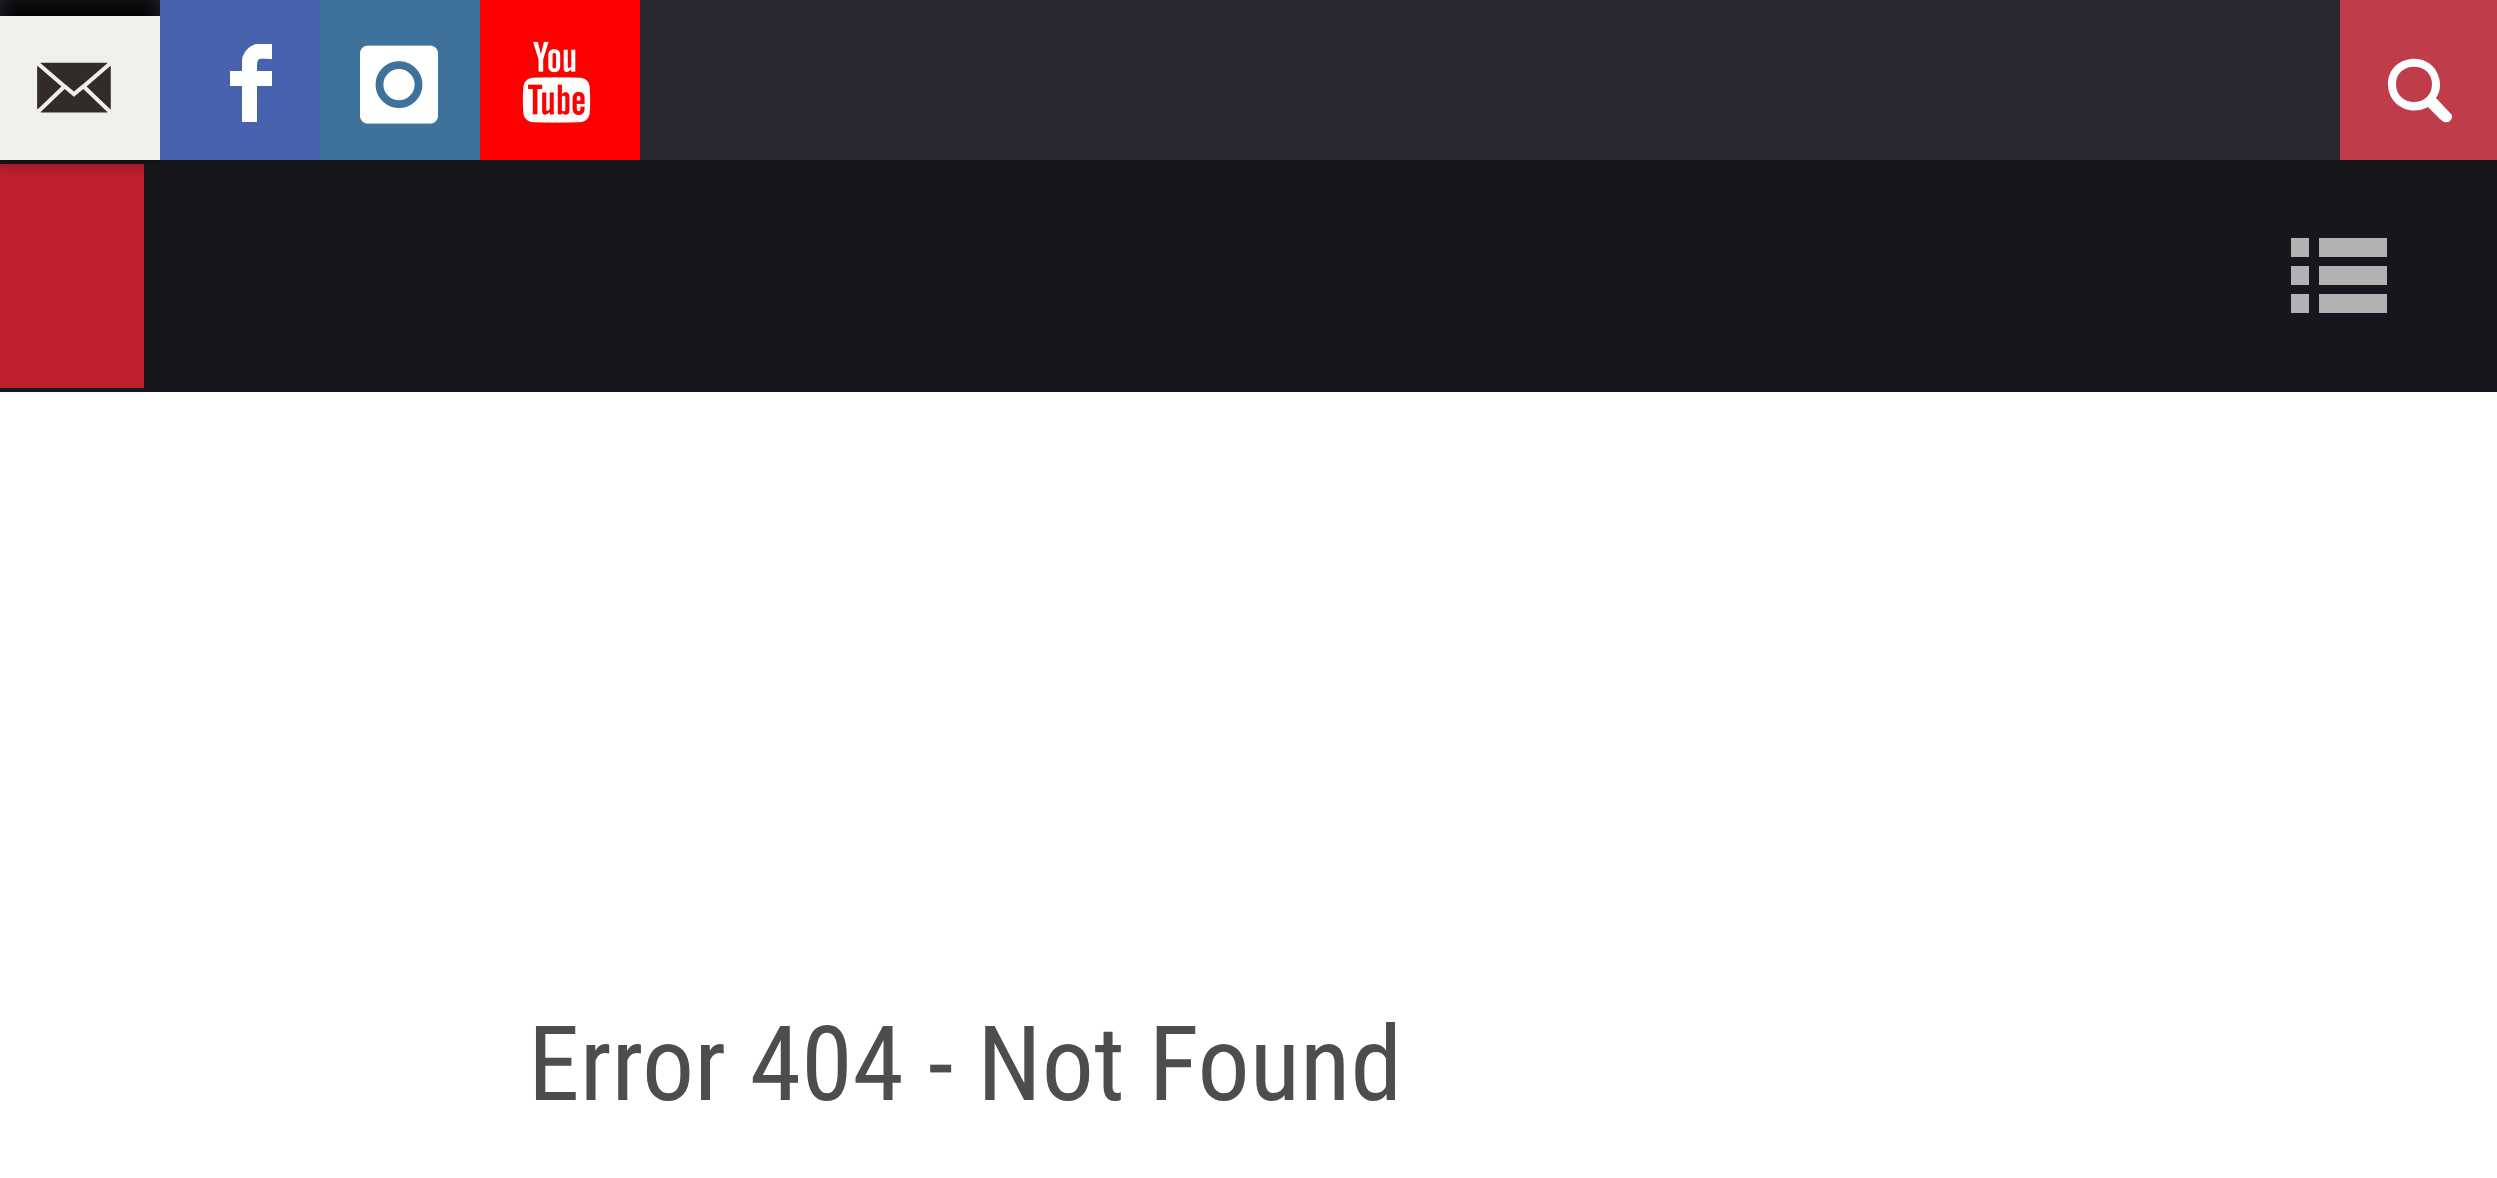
<svg xmlns="http://www.w3.org/2000/svg" width="2497" height="1178" viewBox="0 0 2497 1178">
  <defs>
    <filter id="blur1" x="-50%" y="-200%" width="200%" height="500%"><feGaussianBlur stdDeviation="9.5"/></filter>
  </defs>
  <rect width="100%" height="100%" fill="#ffffff"/>
  <rect x="0" y="0" width="2340" height="160" fill="#29262f"/>
  <rect x="0" y="160" width="2497" height="232" fill="#16161d"/>
  <rect x="0" y="164" width="144" height="224" fill="#be1e2d"/>
  <rect x="0" y="-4" width="160" height="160" fill="#000000" fill-opacity="0.9" filter="url(#blur1)"/>
  <rect x="0" y="16" width="160" height="144" fill="#f0f0eb"/>
  <text x="37" y="113" font-family="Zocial" font-size="71" letter-spacing="8" fill="#312c2a">]</text>
  <rect x="160" y="0" width="160" height="160" fill="#4863ae"/>
  <path d="M230 86V71H242V60C243 52 249 46 256 44H272V59C257 59 257 56 257 71H272V86H257V122H242V86Z" fill="#ffffff"/>
  <rect x="320" y="0" width="160" height="160" fill="#3f729b"/>
  <image x="360" y="45" width="78" height="79" href="img1.png"/>
  <rect x="480" y="0" width="160" height="160" fill="#ff0000"/>
  <image x="522" y="41" width="69" height="82" href="img2.png"/>
  <rect x="2340" y="0" width="157" height="160" fill="#bf3d4a"/>
  <path d="M2388 84C2388 54 2432 49 2439 78C2441 85 2440 92 2436 98L2451 114C2453 116 2452 119 2450 121C2445 125 2440 119 2437 116L2428 107C2410 117 2388 105 2388 84ZM2396 84C2396 108 2432 108 2432 84C2432 61 2396 61 2396 84Z" fill="#ffffff"/>
  <rect x="2291" y="238" width="18" height="19" fill="#b1b1b2"/>
  <rect x="2291" y="266" width="18" height="19" fill="#b1b1b2"/>
  <rect x="2291" y="294" width="18" height="19" fill="#b1b1b2"/>
  <rect x="2319" y="238" width="68" height="19" fill="#b1b1b2"/>
  <rect x="2319" y="266" width="68" height="19" fill="#b1b1b2"/>
  <rect x="2319" y="294" width="68" height="19" fill="#b1b1b2"/>
  <text x="528" y="1100" font-family="Roboto Condensed" font-size="104" fill="#4c4d4f">Error 404 - Not Found</text>
</svg>
